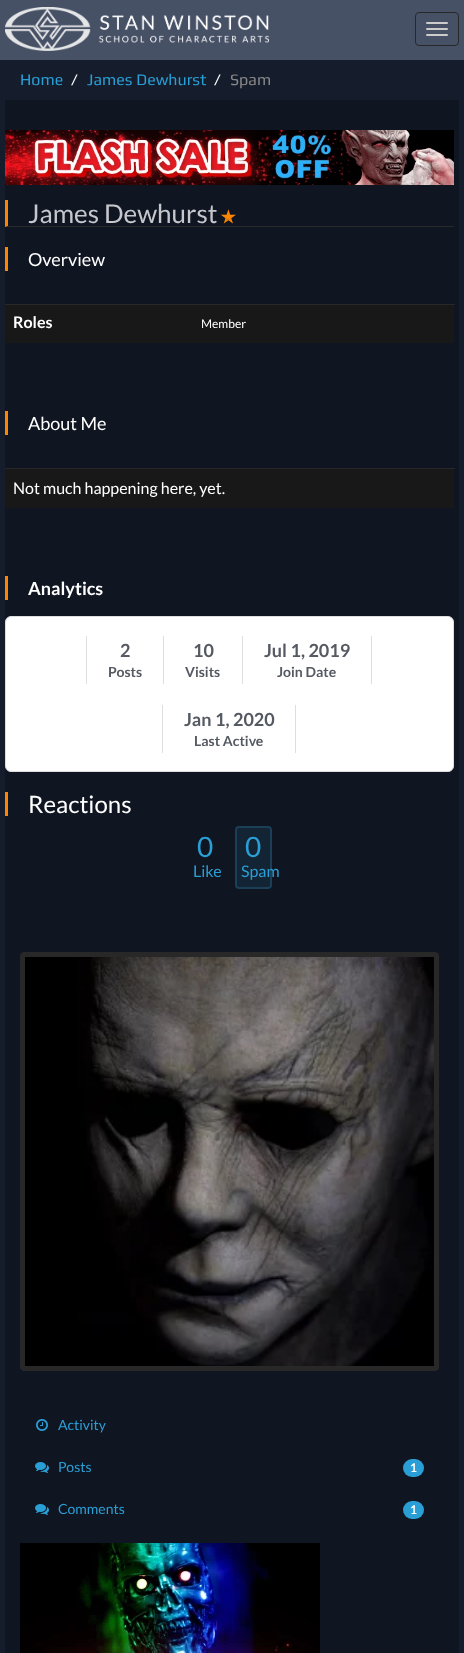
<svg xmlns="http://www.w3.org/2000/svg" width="464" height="1653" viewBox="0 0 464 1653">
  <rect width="100%" height="100%" fill="#151c2b"/>
  <rect x="0" y="0" width="464" height="60" fill="#475166"/>
  <image x="5" y="7" width="264" height="44" href="img1.png"/>
  <rect x="415.5" y="12.5" width="43" height="33" rx="3.5" fill="none" stroke="#282828"/>
  <rect x="426" y="22" width="22" height="2" rx="1" fill="#cccccc"/>
  <rect x="426" y="28" width="22" height="2" rx="1" fill="#cccccc"/>
  <rect x="426" y="34" width="22" height="2" rx="1" fill="#cccccc"/>
  <text x="20" y="85" font-family="Play" font-size="16" fill="#2a9fd6">Home</text>
  <text x="71" y="85" font-family="Play" font-size="16" fill="#ffffff">/</text>
  <text x="87" y="85" font-family="Play" font-size="16" fill="#2a9fd6">James Dewhurst</text>
  <text x="214" y="85" font-family="Play" font-size="16" fill="#ffffff">/</text>
  <text x="230" y="85" font-family="Play" font-size="16" fill="#888888">Spam</text>
  <rect x="5" y="100" width="454" height="1553" fill="#0f1521"/>
  <image x="5" y="130" width="449" height="55" href="img2.png"/>
  <path d="M454 227H5L8 226H454Z" fill="#282828"/>
  <path d="M5 227V200H8V226Z" fill="#ff8400"/>
  <text x="28" y="223" font-family="Lato" font-size="26" fill="#c6c7cd">James Dewhurst</text>
  <text x="221" y="223" font-family="DejaVu Sans" font-size="17" font-weight="bold" fill="#ff8800">✭</text>
  <rect x="5" y="247" width="3" height="24" fill="#ff8400"/>
  <text x="28" y="266" font-family="Lato" font-size="18" fill="#ffffff">Overview</text>
  <rect x="5" y="305" width="449" height="38" fill="#181818"/>
  <text x="13" y="328" font-family="Lato" font-size="16" font-weight="bold" fill="#ffffff">Roles</text>
  <rect x="5" y="304" width="450" height="1" fill="#282828"/>
  <text x="201" y="328" font-family="Lato" font-size="12" fill="#ffffff">Member</text>
  <rect x="5" y="411" width="3" height="24" fill="#ff8400"/>
  <text x="28" y="430" font-family="Lato" font-size="18" fill="#ffffff">About Me</text>
  <rect x="5" y="469" width="449" height="39" fill="#181818"/>
  <rect x="5" y="468" width="450" height="1" fill="#282828"/>
  <text x="13" y="494" font-family="Lato" font-size="16" fill="#ffffff">Not much happening here, yet.</text>
  <rect x="5" y="576" width="3" height="24" fill="#ff8400"/>
  <text x="28" y="595" font-family="Lato" font-size="18" font-weight="bold" fill="#ffffff">Analytics</text>
  <rect x="5.5" y="616.5" width="448" height="155" rx="5.5" fill="#ffffff" stroke="#dddee0"/>
  <rect x="163" y="636" width="1" height="48" fill="#dddee0"/>
  <rect x="86" y="636" width="1" height="48" fill="#dddee0"/>
  <text x="120" y="657" font-family="Lato" font-size="18" font-weight="bold" fill="#555a62">2</text>
  <text x="108" y="677" font-family="Lato" font-size="14" font-weight="bold" fill="#555a62">Posts</text>
  <rect x="242" y="636" width="1" height="48" fill="#dddee0"/>
  <text x="193" y="657" font-family="Lato" font-size="18" font-weight="bold" fill="#555a62">10</text>
  <text x="185" y="677" font-family="Lato" font-size="14" font-weight="bold" fill="#555a62">Visits</text>
  <rect x="371" y="636" width="1" height="48" fill="#dddee0"/>
  <text x="264" y="657" font-family="Lato" font-size="18" font-weight="bold" fill="#555a62">Jul 1, 2019</text>
  <text x="277" y="677" font-family="Lato" font-size="14" font-weight="bold" fill="#555a62">Join Date</text>
  <rect x="295" y="705" width="1" height="48" fill="#dddee0"/>
  <rect x="162" y="705" width="1" height="48" fill="#dddee0"/>
  <text x="184" y="726" font-family="Lato" font-size="18" font-weight="bold" fill="#555a62">Jan 1, 2020</text>
  <text x="194" y="746" font-family="Lato" font-size="14" font-weight="bold" fill="#555a62">Last Active</text>
  <rect x="5" y="792" width="3" height="24" fill="#ff8400"/>
  <text x="28" y="813" font-family="Lato" font-size="24" fill="#ffffff">Reactions</text>
  <text x="197" y="857" font-family="Lato" font-size="28" fill="#2a9fd6">0</text>
  <text x="193" y="877" font-family="Lato" font-size="16" fill="#2a9fd6">Like</text>
  <rect x="235" y="826" width="37" height="63" rx="4" fill="#132434"/>
  <rect x="236" y="827" width="35" height="61" rx="3" fill="none" stroke="#37ade3" stroke-opacity="0.2" stroke-width="2"/>
  <text x="245" y="857" font-family="Lato" font-size="28" fill="#2a9fd6">0</text>
  <text x="241" y="877" font-family="Lato" font-size="16" fill="#2a9fd6">Spam</text>
  <rect x="20.5" y="952.5" width="418" height="418" rx="3.5" fill="#282828" stroke="#282828"/>
  <image x="25" y="957" width="409" height="409" href="img3.png"/>
  <image x="36" y="1419" width="12" height="12" href="img4.png"/>
  <text x="58" y="1430" font-family="Lato" font-size="14" fill="#2a9fd6">Activity</text>
  <image x="35" y="1462" width="14" height="11" href="img5.png"/>
  <text x="58" y="1472" font-family="Lato" font-size="14" fill="#2a9fd6">Posts</text>
  <rect x="403" y="1459" width="21" height="18" rx="9" fill="#2a9fd6"/>
  <text x="410" y="1472" font-family="Lato" font-size="12" font-weight="bold" fill="#ffffff">1</text>
  <image x="35" y="1504" width="14" height="11" href="img5.png"/>
  <text x="58" y="1514" font-family="Lato" font-size="14" fill="#2a9fd6">Comments</text>
  <rect x="403" y="1501" width="21" height="18" rx="9" fill="#2a9fd6"/>
  <text x="410" y="1514" font-family="Lato" font-size="12" font-weight="bold" fill="#ffffff">1</text>
  <image x="20" y="1543" width="300" height="110" href="img6.png"/>
</svg>
